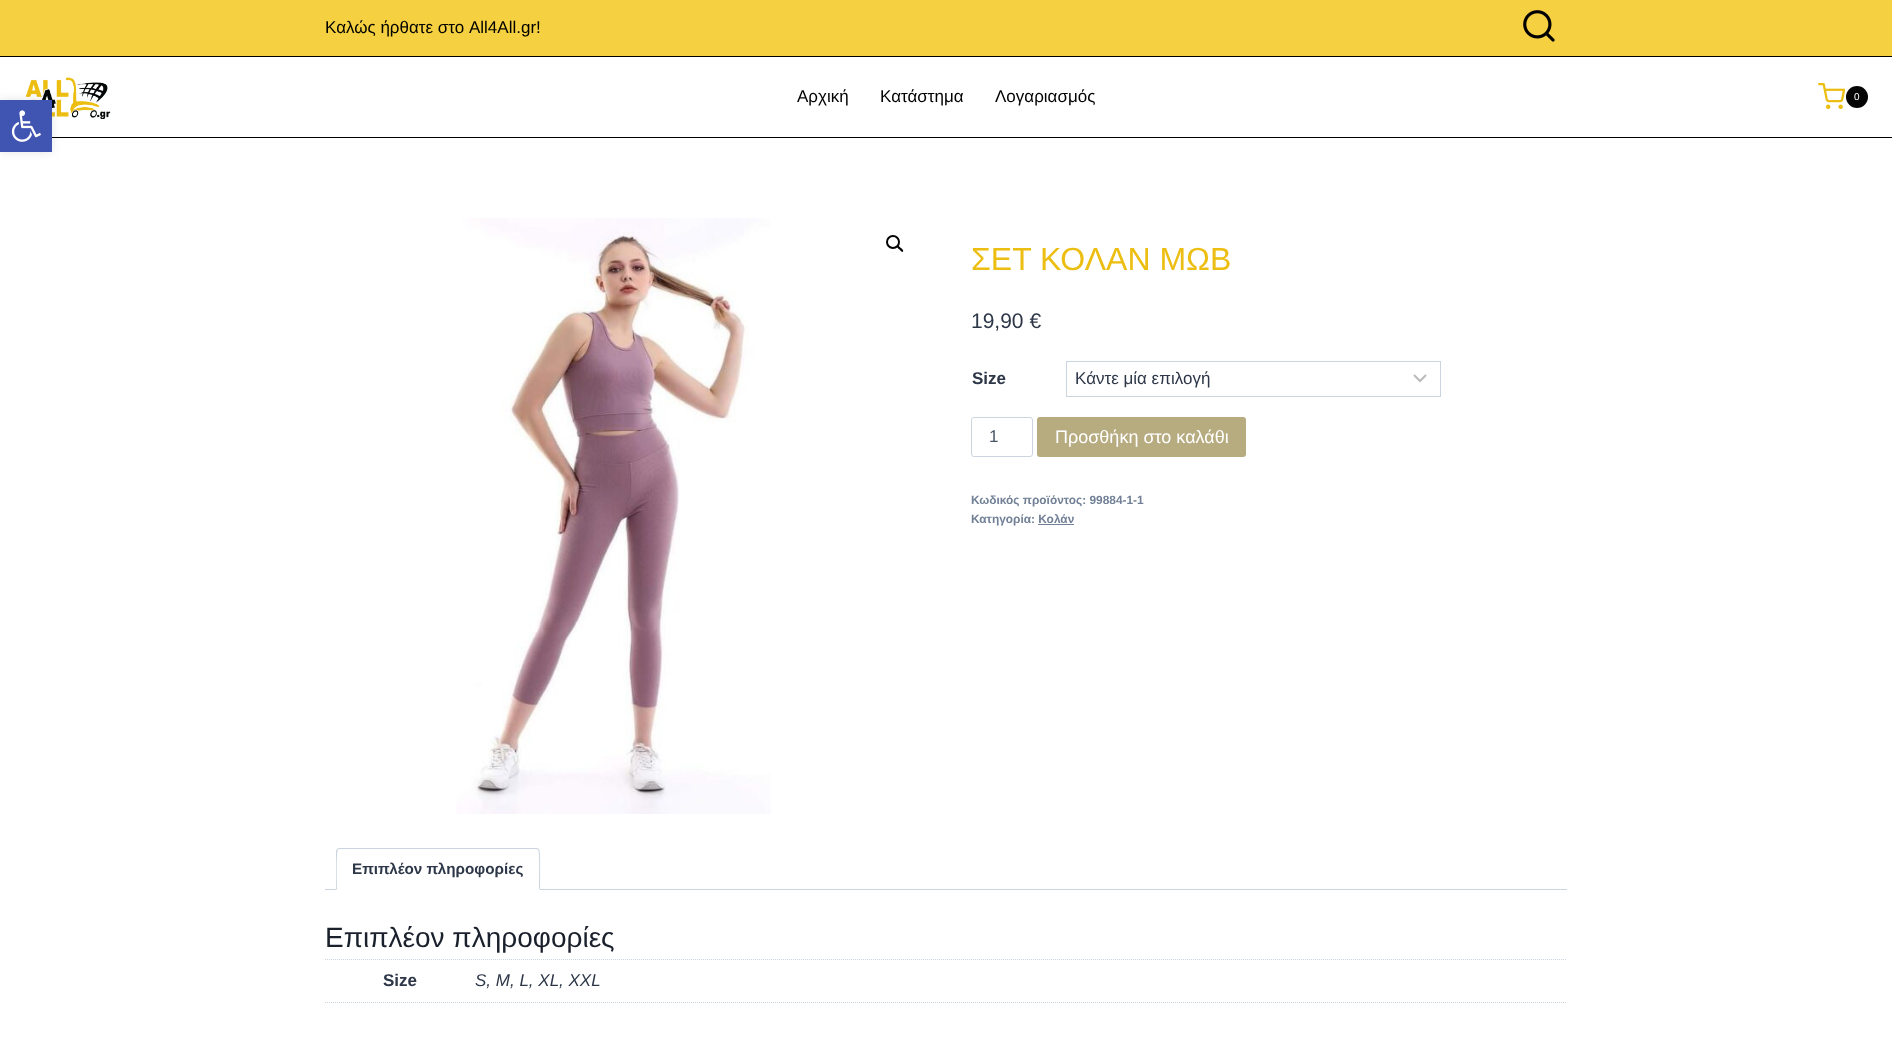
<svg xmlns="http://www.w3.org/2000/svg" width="1892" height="1057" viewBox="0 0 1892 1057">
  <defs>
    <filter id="blur1" x="-50%" y="-200%" width="200%" height="500%"><feGaussianBlur stdDeviation="5"/></filter>
  </defs>
  <rect width="100%" height="100%" fill="#ffffff"/>
  <rect x="52" y="137" width="1840" height="1" fill="#000000"/>
  <image x="25" y="77" width="86" height="42" href="img3.png"/>
  <rect x="0" y="100" width="52" height="52" fill="#000000" fill-opacity="0.1" filter="url(#blur1)"/>
  <rect x="0" y="100" width="52" height="52" fill="#4054b2"/>
  <image x="11" y="110" width="30" height="32" href="img1.png"/>
  <rect x="0" y="0" width="1892" height="56" fill="#f5d040"/>
  <text x="325" y="33" font-family="Liberation Sans" font-size="17" fill="#000000">Καλώς ήρθατε στο All4All.gr!</text>
  <image x="1523" y="10" width="32" height="32" href="img2.png"/>
  <rect x="0" y="56" width="1892" height="1" fill="#000000"/>
  <text x="797" y="102" font-family="Liberation Sans" font-size="17" fill="#000000">Αρχική</text>
  <text x="880" y="102" font-family="Liberation Sans" font-size="17" fill="#000000">Κατάστημα</text>
  <text x="995" y="102" font-family="Liberation Sans" font-size="17" fill="#000000">Λογαριασμός</text>
  <image x="1818" y="83" width="27" height="26" href="img4.png"/>
  <circle cx="1857" cy="97" r="11" fill="#050505"/>
  <text x="1854" y="100" font-family="Liberation Sans" font-size="10" fill="#ffffff">0</text>
  <image x="456" y="218" width="315" height="596" href="img5.png"/>
  <circle cx="893" cy="242" r="6" fill="none" stroke="#000000" stroke-width="2"/>
  <path d="M897.5 246C898.5 245 900 247.5 901 248C901.5 248.5 904 250.5 903 251.5C902 253 900 250 899.5 249.5C899 249 896 247 897.5 246Z" fill="#000000"/>
  <text x="971" y="270" font-family="Liberation Sans" font-size="32" fill="#edbe12">ΣΕΤ ΚΟΛΑΝ ΜΩΒ</text>
  <text x="971" y="328" font-family="Liberation Sans" font-size="21" fill="#2d3748">19,90 €</text>
  <text x="972" y="384" font-family="Liberation Sans" font-size="17" font-weight="bold" fill="#2d3748">Size</text>
  <path d="M1414 375L1420 381L1426 375" fill="none" stroke="#bbbbbb" stroke-width="2"/>
  <rect x="1066.5" y="361.5" width="374" height="35" fill="none" stroke="#cbd5e0"/>
  <text x="1075" y="384" font-family="Liberation Sans" font-size="17" fill="#2d3748">Κάντε μία επιλογή</text>
  <rect x="971.5" y="417.5" width="61" height="39" rx="2.5" fill="none" stroke="#cbd5e0"/>
  <text x="989" y="442" font-family="Liberation Sans" font-size="17" fill="#4a5568">1</text>
  <rect x="1037" y="417" width="209" height="40" rx="3" fill="#b7ab80"/>
  <text x="1055" y="443" font-family="Liberation Sans" font-size="18" fill="#ffffff">Προσθήκη στο καλάθι</text>
  <text x="971" y="504" font-family="Liberation Sans" font-size="11.9" font-weight="bold" fill="#718096">Κωδικός προϊόντος: 99884-1-1</text>
  <text x="971" y="523" font-family="Liberation Sans" font-size="11.9" font-weight="bold" fill="#718096">Κατηγορία: Κολάν</text>
  <rect x="1038" y="524" width="36" height="1" fill="#718096"/>
  <rect x="325" y="889" width="1242" height="1" fill="#cbd5e0"/>
  <path d="M339 848H537C538.5 848 540 849.5 540 851V890H336V851C336 849.5 337.5 848 339 848Z" fill="#ffffff"/>
  <path d="M339 848L337 849L338 850L339 849H537L538 850L539 849L537 848Z" fill="#cbd5e0"/>
  <path d="M540 890C540 885 541 851 539 849L538 850C540 851 539 884 539 889Z" fill="#cbd5e0"/>
  <path d="M540 890L539 889H337L336 890Z" fill="#ffffff"/>
  <path d="M336 890L337 889C337 884 336 851 338 850L337 849L336 851Z" fill="#cbd5e0"/>
  <text x="352" y="874" font-family="Liberation Sans" font-size="15.25" font-weight="bold" fill="#2d3748">Επιπλέον πληροφορίες</text>
  <text x="325" y="947" font-family="Liberation Sans" font-size="28" fill="#1a202c">Επιπλέον πληροφορίες</text>
  <path d="M325 959.5H1567" fill="none" stroke="#cbd5e0" stroke-dasharray="1 1"/>
  <path d="M325 1002.5H475" fill="none" stroke="#cbd5e0" stroke-dasharray="1 1"/>
  <text x="383" y="986" font-family="Liberation Sans" font-size="17" font-weight="bold" fill="#2d3748">Size</text>
  <path d="M475 1002.5H1567" fill="none" stroke="#cbd5e0" stroke-dasharray="1 1"/>
  <text x="475" y="986" font-family="Liberation Sans" font-size="17" font-style="italic" fill="#2d3748">S, M, L, XL, XXL</text>
</svg>
